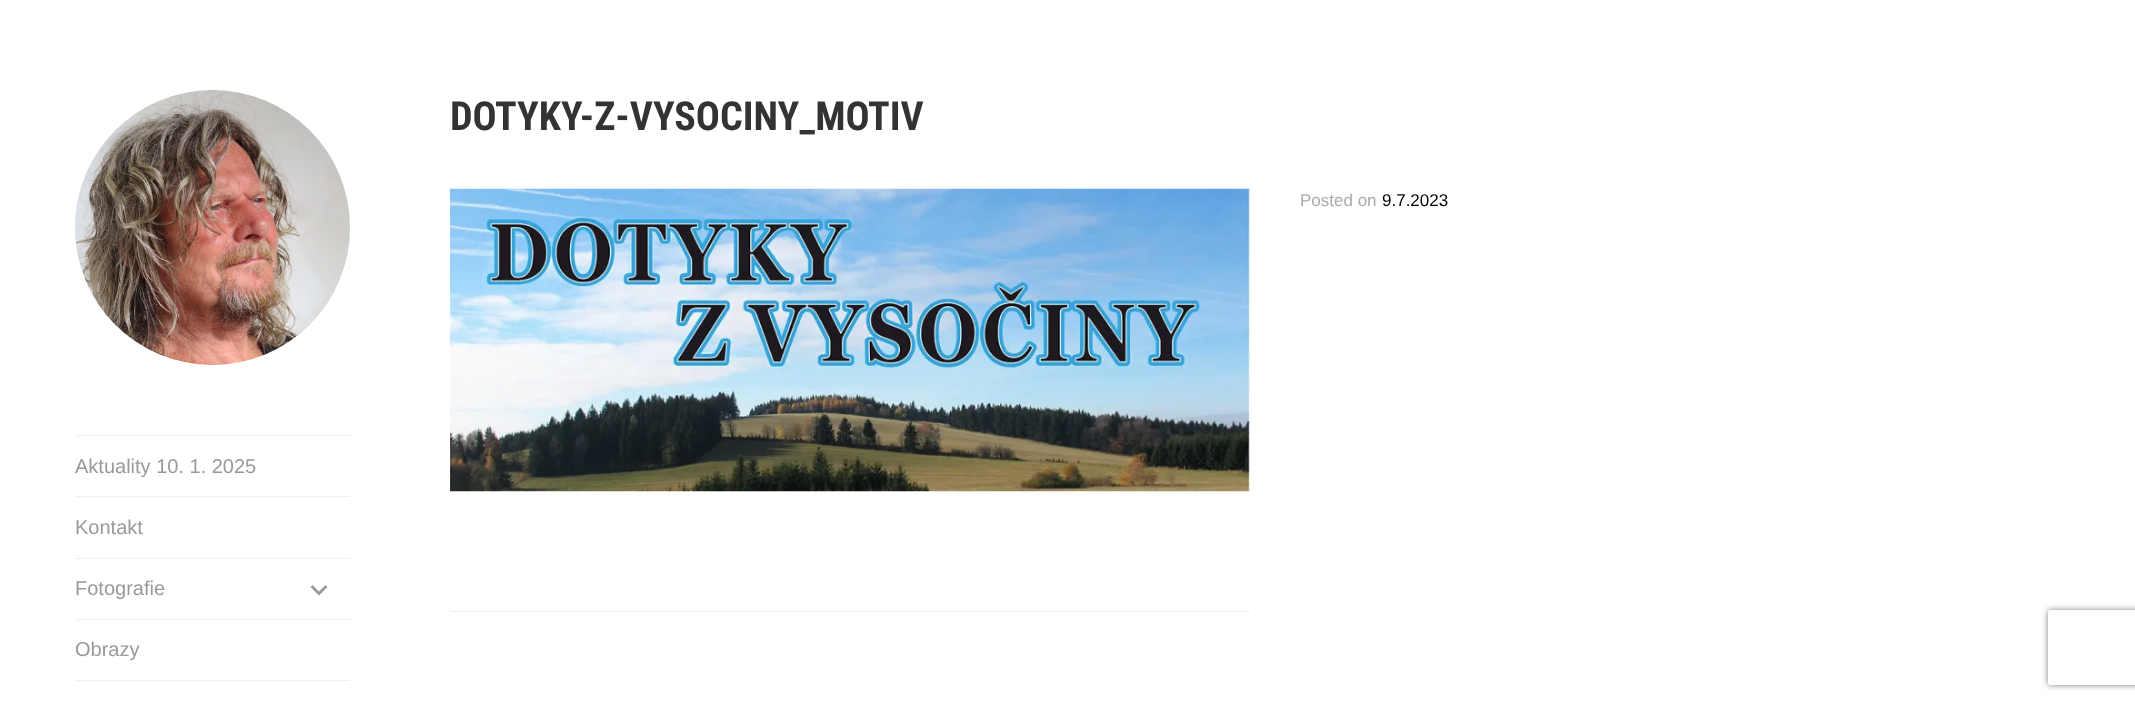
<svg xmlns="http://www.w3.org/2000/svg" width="2135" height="702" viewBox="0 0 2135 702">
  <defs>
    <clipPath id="clip1"><path d="M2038 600H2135V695H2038ZM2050.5 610H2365.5C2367 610 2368 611 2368 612.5V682.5C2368 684 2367 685 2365.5 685H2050.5C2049 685 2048 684 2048 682.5V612.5C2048 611 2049 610 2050.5 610Z" clip-rule="evenodd"/></clipPath>
    <filter id="blur1" x="-50%" y="-200%" width="200%" height="500%"><feGaussianBlur stdDeviation="3"/></filter>
  </defs>
  <rect width="100%" height="100%" fill="#ffffff"/>
  <text x="450" y="130" font-family="Roboto Condensed" font-size="40" font-weight="bold" fill="#333333">DOTYKY-Z-VYSOCINY_MOTIV</text>
  <image x="450" y="188" width="800" height="304" href="img1.png"/>
  <text x="1300" y="206" font-family="Arimo" font-size="17" fill="#aaaaaa">Posted on</text>
  <text x="1382" y="206" font-family="Arimo" font-size="17" fill="#000000">9.7.2023</text>
  <rect x="450" y="611" width="800" height="1" fill="#eeeeee"/>
  <circle cx="212.5" cy="227.5" r="137.5" fill="#eeeeee"/>
  <image x="75" y="90" width="275" height="275" href="img2.png"/>
  <rect x="75" y="435" width="275" height="1" fill="#f0f0f0"/>
  <text x="75" y="473" font-family="Arimo" font-size="20" fill="#999999">Aktuality 10. 1. 2025</text>
  <rect x="75" y="496" width="275" height="1" fill="#f0f0f0"/>
  <text x="75" y="534" font-family="Arimo" font-size="20" fill="#999999">Kontakt</text>
  <rect x="75" y="558" width="275" height="1" fill="#f0f0f0"/>
  <text x="75" y="595" font-family="Arimo" font-size="20" fill="#999999">Fotografie</text>
  <path d="M325.5 585L327.5 587L319 595.5L310.5 587L312.5 585L319 591.5Z" fill="#999999"/>
  <rect x="75" y="619" width="275" height="1" fill="#f0f0f0"/>
  <text x="75" y="656" font-family="Arimo" font-size="20" fill="#999999">Obrazy</text>
  <rect x="75" y="680" width="275" height="1" fill="#f0f0f0"/>
  <g clip-path="url(#clip1)">
    <rect x="2048" y="610" width="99" height="75" rx="2.5" fill="#808080" filter="url(#blur1)"/>
  </g>
</svg>
